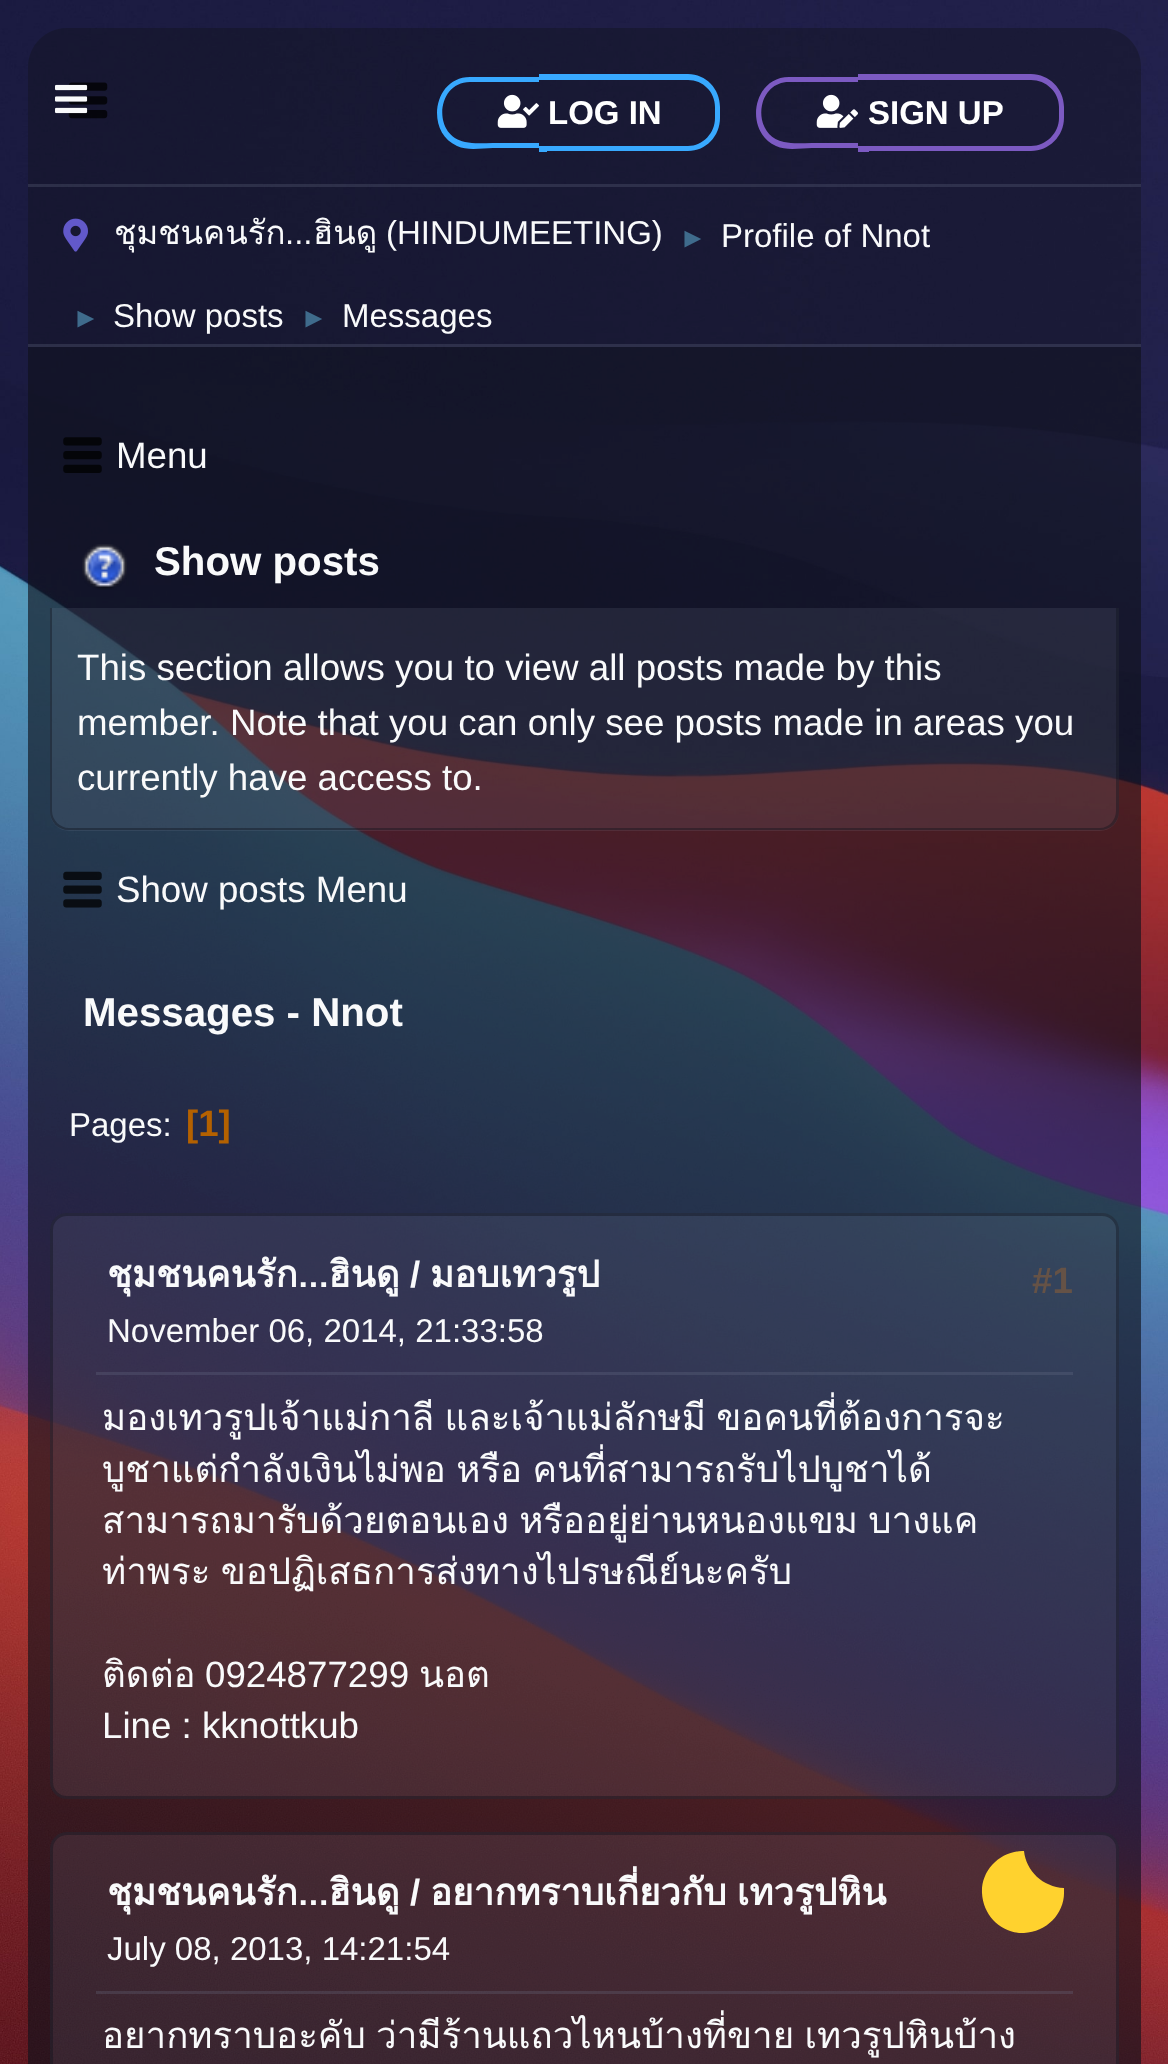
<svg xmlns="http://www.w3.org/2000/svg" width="1168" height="2064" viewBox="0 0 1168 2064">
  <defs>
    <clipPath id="clip1"><rect x="96" y="1370" width="977" height="393"/></clipPath>
  </defs>
  <rect width="100%" height="100%" fill="#ffffff"/>
  <image x="0" y="0" width="1168" height="2064" href="img1.png"/>
  <rect x="28" y="184" width="1113" height="3" fill="#717790" fill-opacity="0.25"/>
  <image x="68" y="82" width="40" height="37" href="img2.png"/>
  <image x="55" y="84" width="33" height="30" href="img3.png"/>
  <path d="M470 77H539V148H493C482 148 468 151 457 146C425 132 433 77 470 77ZM470 82H539V143H493C484 143 474 144 465 142C432 136 436 82 470 82Z" fill="#38a9ff" fill-rule="evenodd"/>
  <rect x="539" y="74" width="8" height="6" fill="#38a9ff"/>
  <rect x="539" y="146" width="8" height="6" fill="#38a9ff"/>
  <path d="M547 74H688C706 74 720 89 720 107V118C720 136 706 151 688 151H547ZM547 80H688C703 80 715 92 715 107V118C715 133 703 146 688 146H547Z" fill="#38a9ff" fill-rule="evenodd"/>
  <image x="497" y="94" width="42" height="34" href="img4.png"/>
  <text x="548" y="124" font-family="Liberation Sans" font-size="33" font-weight="bold" fill="#ffffff">LOG IN</text>
  <path d="M789 77H858V148H812C801 148 787 151 776 146C744 132 752 77 789 77ZM789 82H858V143H812C803 143 793 144 784 142C751 136 755 82 789 82Z" fill="#7c5ac2" fill-rule="evenodd"/>
  <rect x="858" y="74" width="11" height="6" fill="#7c5ac2"/>
  <rect x="858" y="146" width="11" height="6" fill="#7c5ac2"/>
  <path d="M869 74H1031C1049 74 1064 89 1064 107V118C1064 136 1049 151 1031 151H869ZM869 80H1031C1046 80 1059 92 1059 107V118C1059 133 1046 146 1031 146H869Z" fill="#7c5ac2" fill-rule="evenodd"/>
  <image x="816" y="94" width="42" height="34" href="img5.png"/>
  <text x="868" y="124" font-family="Liberation Sans" font-size="33" font-weight="bold" fill="#ffffff">SIGN UP</text>
  <rect x="28" y="344" width="1113" height="3" fill="#717790" fill-opacity="0.25"/>
  <image x="63" y="218" width="25" height="34" href="img6.png"/>
  <text x="114" y="244" font-family="Loma" font-size="33" fill="#f9fafb">ชุมชนคนรัก</text>
  <text x="285" y="244" font-family="Liberation Sans" font-size="33" fill="#f9fafb">...</text>
  <text x="313" y="244" font-family="Loma" font-size="33" fill="#f9fafb">ฮินดู</text>
  <text x="386" y="244" font-family="Liberation Sans" font-size="33" fill="#f9fafb">(HINDUMEETING)</text>
  <text x="679" y="247" font-family="Liberation Sans" font-size="28" fill="#3f6b8c">►</text>
  <text x="721" y="247" font-family="Liberation Sans" font-size="33" fill="#f9fafb">Profile of Nnot</text>
  <text x="72" y="327" font-family="Liberation Sans" font-size="28" fill="#3f6b8c">►</text>
  <text x="113" y="327" font-family="Liberation Sans" font-size="33" fill="#f9fafb">Show posts</text>
  <text x="300" y="327" font-family="Liberation Sans" font-size="28" fill="#3f6b8c">►</text>
  <text x="342" y="327" font-family="Liberation Sans" font-size="33" fill="#f9fafb">Messages</text>
  <rect x="28" y="347" width="1113" height="1717" fill="#10121b" fill-opacity="0.4"/>
  <image x="63" y="437" width="39" height="36" href="img7.png"/>
  <text x="116" y="468" font-family="Liberation Sans" font-size="36.7" fill="#f9fafb">Menu</text>
  <image x="82" y="544" width="45" height="46" href="img8.png"/>
  <text x="154" y="575" font-family="Liberation Sans" font-size="40.25" font-weight="bold" fill="#f9fafb">Show posts</text>
  <path d="M50 608H1119V812C1119 822.5 1110.5 831 1100 831H69C58.5 831 50 822.5 50 812Z" fill="#9297b3" fill-opacity="0.13"/>
  <path d="M50 608H1119V811C1119 822 1111 830 1100 830H69C58 830 50 822 50 811ZM52 608H1116V811C1116 820 1109 828 1100 828H69C60 828 52 820 52 811Z" fill="#10121b" fill-opacity="0.4" fill-rule="evenodd"/>
  <text x="77" y="680" font-family="Liberation Sans" font-size="36.7" fill="#f9fafb">This section allows you to view all posts made by this</text>
  <text x="77" y="735" font-family="Liberation Sans" font-size="36.7" fill="#f9fafb">member. Note that you can only see posts made in areas you</text>
  <text x="77" y="790" font-family="Liberation Sans" font-size="36.7" fill="#f9fafb">currently have access to.</text>
  <image x="63" y="871" width="39" height="37" href="img9.png"/>
  <text x="116" y="902" font-family="Liberation Sans" font-size="36.7" fill="#f9fafb">Show posts Menu</text>
  <text x="83" y="1026" font-family="Liberation Sans" font-size="40.25" font-weight="bold" fill="#f9fafb">Messages - Nnot</text>
  <text x="69" y="1136" font-family="Liberation Sans" font-size="33" fill="#f9fafb">Pages:</text>
  <text x="186" y="1136" font-family="Liberation Sans" font-size="36.7" font-weight="bold" fill="#b46100">[1]</text>
  <rect x="50" y="1213" width="1069" height="586" rx="17" fill="#9297b3" fill-opacity="0.13"/>
  <rect x="51.5" y="1214.5" width="1066" height="583" rx="15.5" fill="none" stroke="#10121b" stroke-opacity="0.4" stroke-width="3"/>
  <text x="107" y="1287" font-family="Loma" font-size="36.7" font-weight="bold" fill="#f9fafb">ชุมชนคนรัก...ฮินดู</text>
  <text x="410" y="1287" font-family="Liberation Sans" font-size="36.7" font-weight="bold" fill="#f9fafb">/</text>
  <text x="430" y="1287" font-family="Loma" font-size="36.7" font-weight="bold" fill="#f9fafb">มอบเทวรูป</text>
  <text x="107" y="1342" font-family="Liberation Sans" font-size="33" fill="#f9fafb">November 06, 2014, 21:33:58</text>
  <text x="1032" y="1293" font-family="Liberation Sans" font-size="36.7" font-weight="bold" fill="#655246">#1</text>
  <rect x="96" y="1372" width="977" height="3" fill="#717790" fill-opacity="0.25"/>
  <text x="102" y="1430" word-spacing="-2" font-family="Loma" font-size="36.7" fill="#f9fafb">มองเทวรูปเจ้าแม่กาลี และเจ้าแม่ลักษมี ขอคนที่ต้องการจะ</text>
  <g clip-path="url(#clip1)">
    <text x="102" y="1482" word-spacing="-2" font-family="Loma" font-size="36.7" fill="#f9fafb">บูชาแต่กำลังเงินไม่พอ หรือ คนที่สามารถรับไปบูชาได้</text>
  </g>
  <text x="102" y="1533" word-spacing="-2" font-family="Loma" font-size="36.7" fill="#f9fafb">สามารถมารับด้วยตอนเอง หรืออยู่ย่านหนองแขม บางแค</text>
  <text x="102" y="1584" word-spacing="-2" font-family="Loma" font-size="36.7" fill="#f9fafb">ท่าพระ ขอปฏิเสธการส่งทางไปรษณีย์นะครับ</text>
  <g clip-path="url(#clip1)">
    <text x="102" y="1687" font-family="Loma" font-size="36.7" fill="#f9fafb">ติดต่อ</text>
  </g>
  <text x="205" y="1687" font-family="Liberation Sans" font-size="36.7" fill="#f9fafb">0924877299</text>
  <text x="419" y="1687" font-family="Loma" font-size="36.7" fill="#f9fafb">นอต</text>
  <text x="102" y="1738" font-family="Liberation Sans" font-size="36.7" fill="#f9fafb">Line : kknottkub</text>
  <rect x="50" y="1832" width="1069" height="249" rx="17" fill="#9297b3" fill-opacity="0.13"/>
  <rect x="51.5" y="1833.5" width="1066" height="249" rx="15.5" fill="none" stroke="#10121b" stroke-opacity="0.4" stroke-width="3"/>
  <text x="107" y="1905" font-family="Loma" font-size="36.7" font-weight="bold" fill="#f9fafb">ชุมชนคนรัก...ฮินดู</text>
  <text x="410" y="1905" font-family="Liberation Sans" font-size="36.7" font-weight="bold" fill="#f9fafb">/</text>
  <text x="430" y="1905" word-spacing="-2" font-family="Loma" font-size="36.7" font-weight="bold" fill="#f9fafb">อยากทราบเกี่ยวกับ เทวรูปหิน</text>
  <text x="107" y="1960" font-family="Liberation Sans" font-size="33" fill="#f9fafb">July 08, 2013, 14:21:54</text>
  <rect x="96" y="1991" width="977" height="3" fill="#717790" fill-opacity="0.25"/>
  <text x="102" y="2048" word-spacing="-2" font-family="Loma" font-size="36.7" fill="#f9fafb">อยากทราบอะคับ ว่ามีร้านแถวไหนบ้างที่ขาย เทวรูปหินบ้าง</text>
  <path d="M1022 1851C999 1852 981 1871 982 1893C983 1916 1002 1934 1024 1933C1047 1932 1065 1913 1064 1891V1888C1043 1887 1026 1871 1024 1851Z" fill="#ffd22e"/>
</svg>
